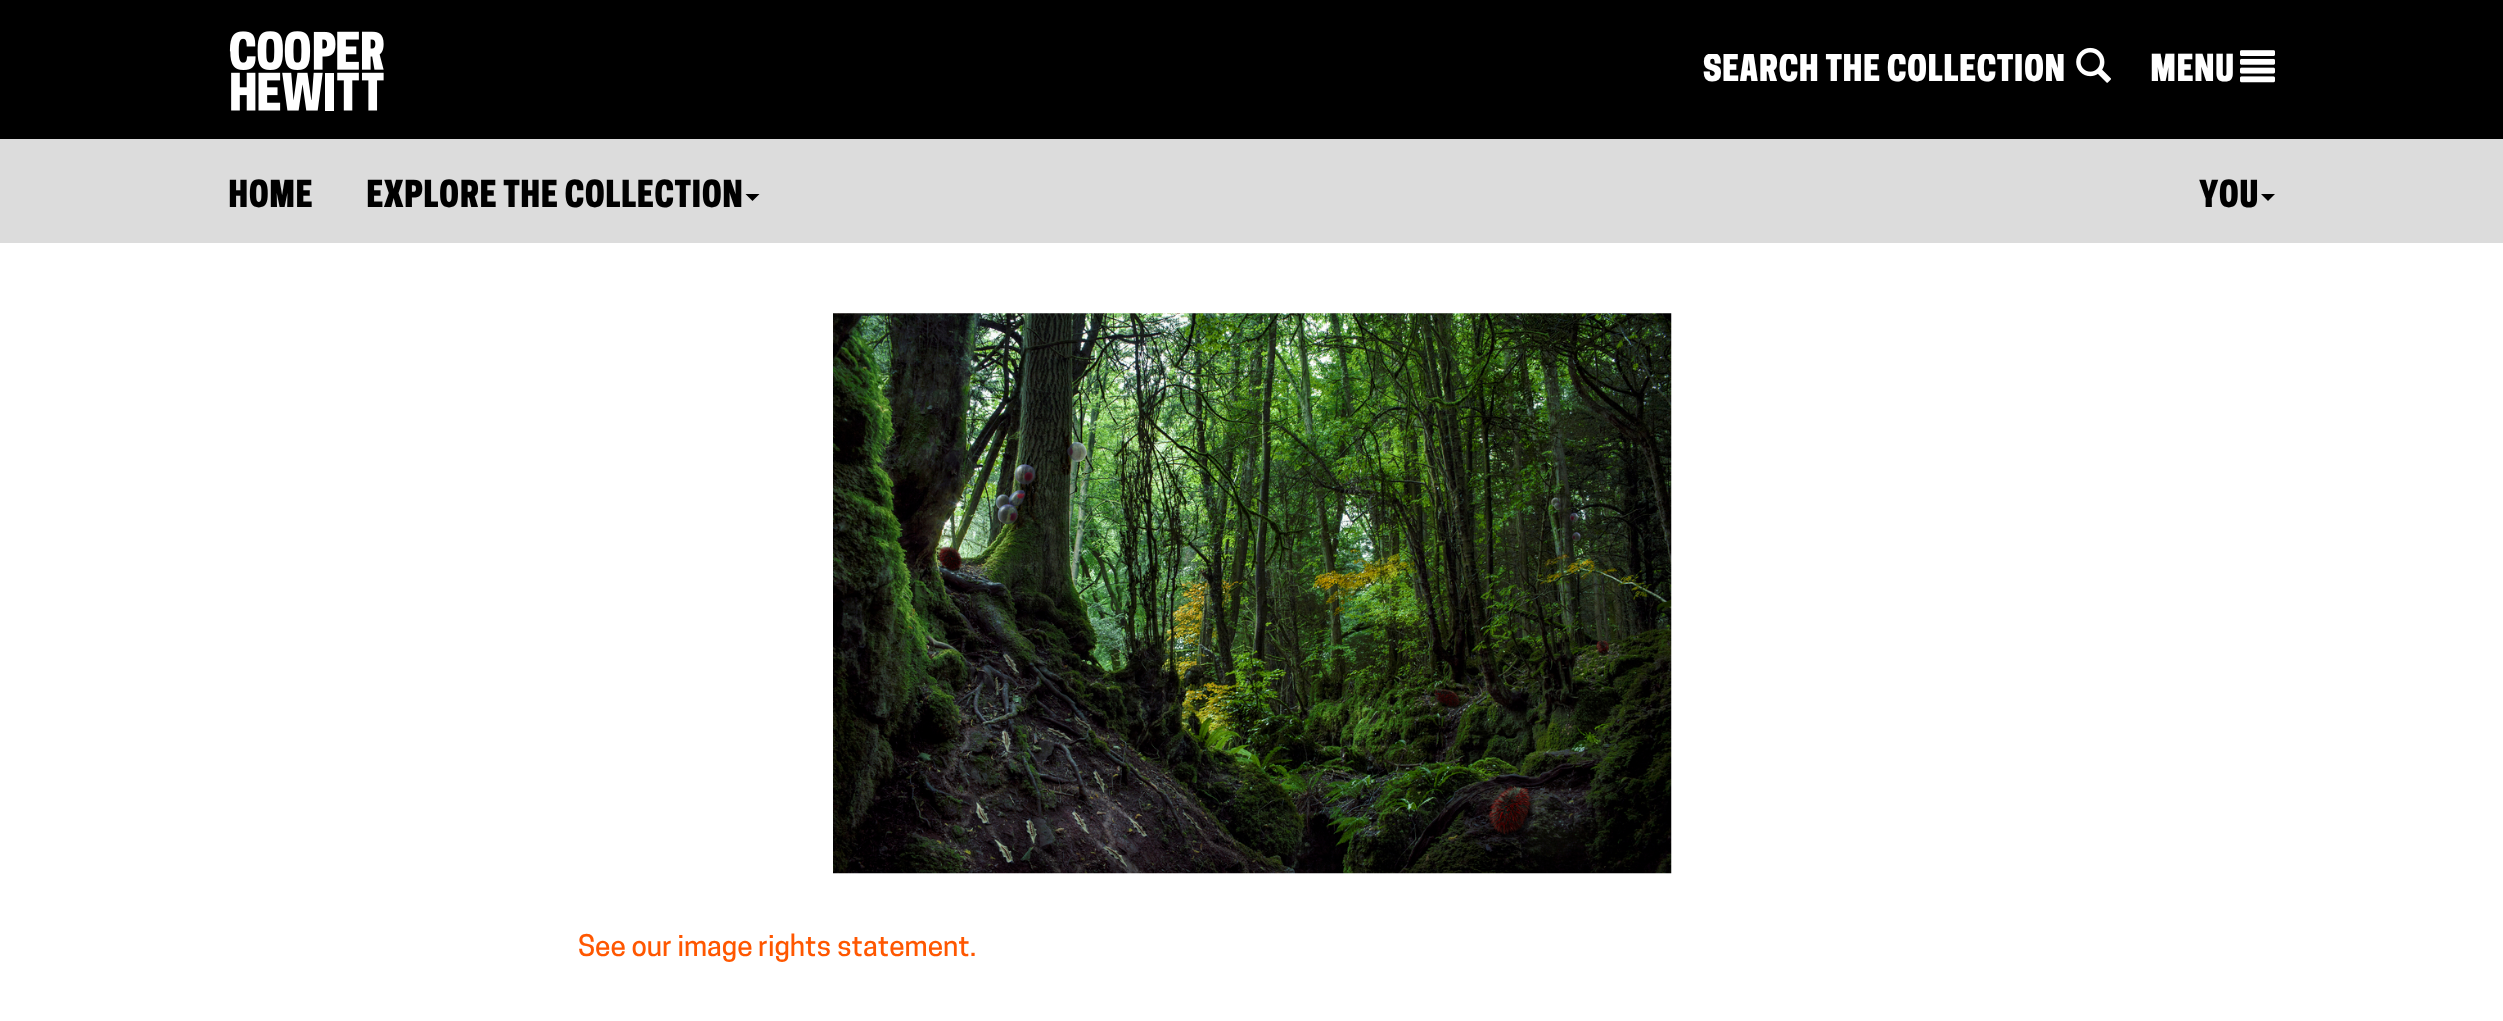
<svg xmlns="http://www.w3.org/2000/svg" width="2503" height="1021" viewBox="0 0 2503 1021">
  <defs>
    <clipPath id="clip1"><rect x="1635" y="54" width="430" height="35"/></clipPath>
  </defs>
  <rect width="100%" height="100%" fill="#ffffff"/>
  <rect x="0" y="0" width="2503" height="139" fill="#000000"/>
  <image x="229" y="31" width="155" height="80" href="img1.png"/>
  <g clip-path="url(#clip1)">
    <text x="1703" y="81" font-family="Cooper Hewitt" font-size="35" font-weight="600" fill="#ffffff">SEARCH THE COLLECTION</text>
  </g>
  <image x="2076" y="47" width="35" height="36" href="img2.png"/>
  <text x="2150" y="81" font-family="Cooper Hewitt" font-size="35" font-weight="600" fill="#ffffff">MENU</text>
  <image x="2240" y="50" width="35" height="33" href="img3.png"/>
  <rect x="0" y="139" width="2503" height="104" fill="#dcdcdc"/>
  <text x="228" y="207" font-family="Cooper Hewitt" font-size="35" font-weight="600" fill="#000000">HOME</text>
  <text x="366" y="207" font-family="Cooper Hewitt" font-size="35" font-weight="600" fill="#000000">EXPLORE THE COLLECTION</text>
  <path d="M745.5 194H759.5L752.5 201Z" fill="#000000"/>
  <text x="2199" y="207" font-family="Cooper Hewitt" font-size="35" font-weight="600" fill="#000000">YOU</text>
  <path d="M2261 194H2275L2268 201Z" fill="#000000"/>
  <image x="833" y="313" width="839" height="561" href="img4.png"/>
  <text x="578" y="956" font-family="Cooper Hewitt" font-size="28" font-weight="500" fill="#ff5700">See our image rights statement.</text>
</svg>
